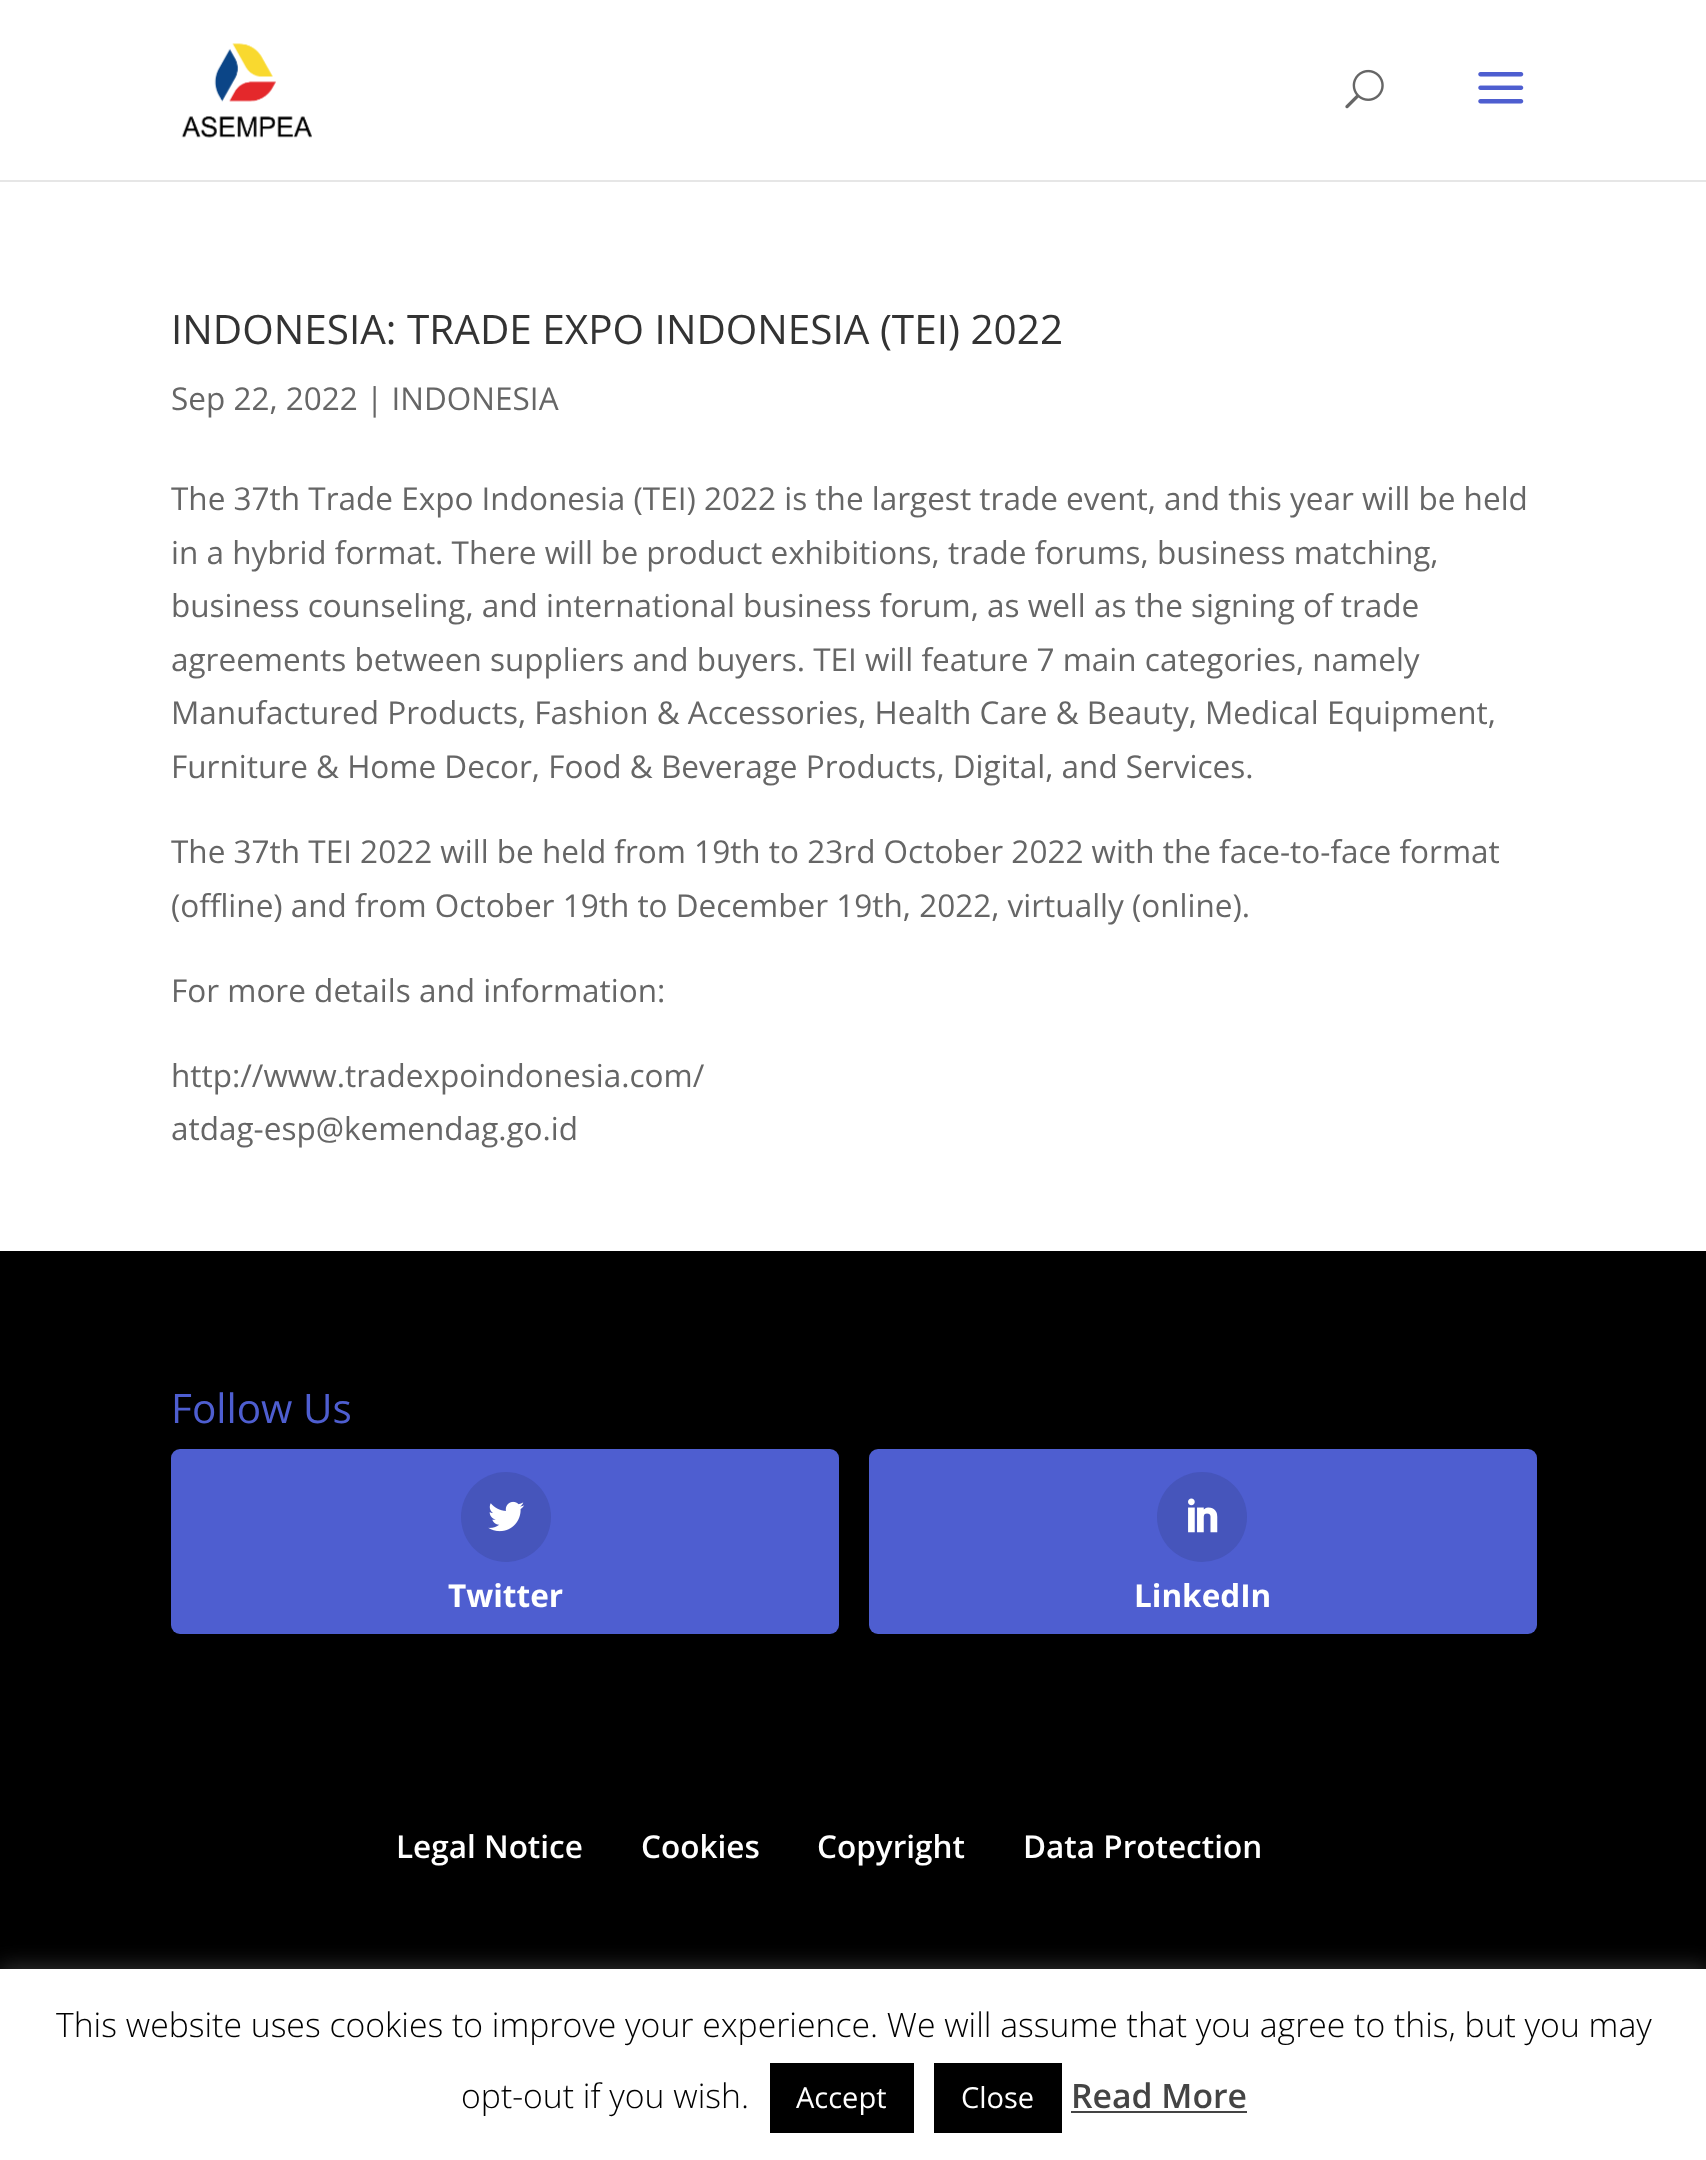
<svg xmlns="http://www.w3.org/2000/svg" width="1706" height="2160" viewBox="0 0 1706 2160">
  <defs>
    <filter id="blur1" x="-50%" y="-200%" width="200%" height="500%"><feGaussianBlur stdDeviation="11"/></filter>
  </defs>
  <rect width="100%" height="100%" fill="#ffffff"/>
  <path d="M0 180V182H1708V2V180Z" fill="#e6e6e6"/>
  <image x="181" y="43" width="131" height="95" href="img1.png"/>
  <image x="1345" y="69" width="39" height="40" href="img2.png"/>
  <image x="1478" y="72" width="46" height="32" href="img3.png"/>
  <text x="171" y="344" font-family="Open Sans" font-size="40.5" fill="#333333">INDONESIA: TRADE EXPO INDONESIA (TEI) 2022</text>
  <text x="171" y="410" font-family="Open Sans" font-size="31.5" fill="#666666">Sep 22, 2022 | INDONESIA</text>
  <text x="171" y="510" font-family="Open Sans" font-size="31.5" fill="#666666">The 37th Trade Expo Indonesia (TEI) 2022 is the largest trade event, and this year will be held</text>
  <text x="171" y="564" font-family="Open Sans" font-size="31.5" fill="#666666">in a hybrid format. There will be product exhibitions, trade forums, business matching,</text>
  <text x="171" y="617" font-family="Open Sans" font-size="31.5" fill="#666666">business counseling, and international business forum, as well as the signing of trade</text>
  <text x="171" y="671" font-family="Open Sans" font-size="31.5" fill="#666666">agreements between suppliers and buyers. TEI will feature 7 main categories, namely</text>
  <text x="171" y="724" font-family="Open Sans" font-size="31.5" fill="#666666">Manufactured Products, Fashion &amp; Accessories, Health Care &amp; Beauty, Medical Equipment,</text>
  <text x="171" y="778" font-family="Open Sans" font-size="31.5" fill="#666666">Furniture &amp; Home Decor, Food &amp; Beverage Products, Digital, and Services.</text>
  <text x="171" y="863" font-family="Open Sans" font-size="31.5" fill="#666666">The 37th TEI 2022 will be held from 19th to 23rd October 2022 with the face-to-face format</text>
  <text x="171" y="917" font-family="Open Sans" font-size="31.5" fill="#666666">(offline) and from October 19th to December 19th, 2022, virtually (online).</text>
  <text x="171" y="1002" font-family="Open Sans" font-size="31.5" fill="#666666">For more details and information:</text>
  <text x="171" y="1087" font-family="Open Sans" font-size="31.5" fill="#666666">http://www.tradexpoindonesia.com/</text>
  <text x="171" y="1140" font-family="Open Sans" font-size="31.5" fill="#666666">atdag-esp@kemendag.go.id</text>
  <rect x="0" y="1251" width="1706" height="718" fill="#000000"/>
  <text x="171" y="1423" font-family="Open Sans" font-size="40.5" fill="#4e5ed0">Follow Us</text>
  <rect x="171" y="1449" width="668" height="185" rx="9" fill="#4e5ed0"/>
  <circle cx="506" cy="1517" r="45" fill="#4655bb"/>
  <image x="488" y="1501" width="37" height="31" href="img4.png"/>
  <text x="448" y="1607" font-family="Open Sans" font-size="31.5" font-weight="bold" fill="#ffffff">Twitter</text>
  <rect x="869" y="1449" width="668" height="185" rx="9" fill="#4e5ed0"/>
  <circle cx="1202" cy="1517" r="45" fill="#4655bb"/>
  <image x="1188" y="1498" width="30" height="35" href="img5.png"/>
  <text x="1134" y="1607" font-family="Open Sans" font-size="31.5" font-weight="bold" fill="#ffffff">LinkedIn</text>
  <text x="396" y="1858" font-family="Open Sans" font-size="31.5" font-weight="600" fill="#ffffff">Legal Notice</text>
  <text x="641" y="1858" font-family="Open Sans" font-size="31.5" font-weight="600" fill="#ffffff">Cookies</text>
  <text x="817" y="1858" font-family="Open Sans" font-size="31.5" font-weight="600" fill="#ffffff">Copyright</text>
  <text x="1023" y="1858" font-family="Open Sans" font-size="31.5" font-weight="600" fill="#ffffff">Data Protection</text>
  <rect x="0" y="1967" width="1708" height="191" fill="#acabab" fill-opacity="0.3" filter="url(#blur1)"/>
  <rect x="0" y="1969" width="1706" height="191" fill="#ffffff"/>
  <text x="56" y="2037" font-family="Open Sans" font-size="33.75" font-weight="300" fill="#000000">This website uses cookies to improve your experience. We will assume that you agree to this, but you may</text>
  <text x="461" y="2108" font-family="Open Sans" font-size="33.75" font-weight="300" fill="#000000">opt-out if you wish.</text>
  <rect x="770" y="2063" width="144" height="70" fill="#000000"/>
  <text x="796" y="2108" font-family="Open Sans" font-size="29" fill="#ffffff">Accept</text>
  <rect x="934" y="2063" width="128" height="70" fill="#000000"/>
  <text x="961" y="2108" font-family="Open Sans" font-size="29" fill="#ffffff">Close</text>
  <text x="1071" y="2108" font-family="Open Sans" font-size="33.75" font-weight="600" fill="#444444">Read More</text>
  <rect x="1071" y="2111" width="176" height="2" fill="#444444"/>
</svg>
